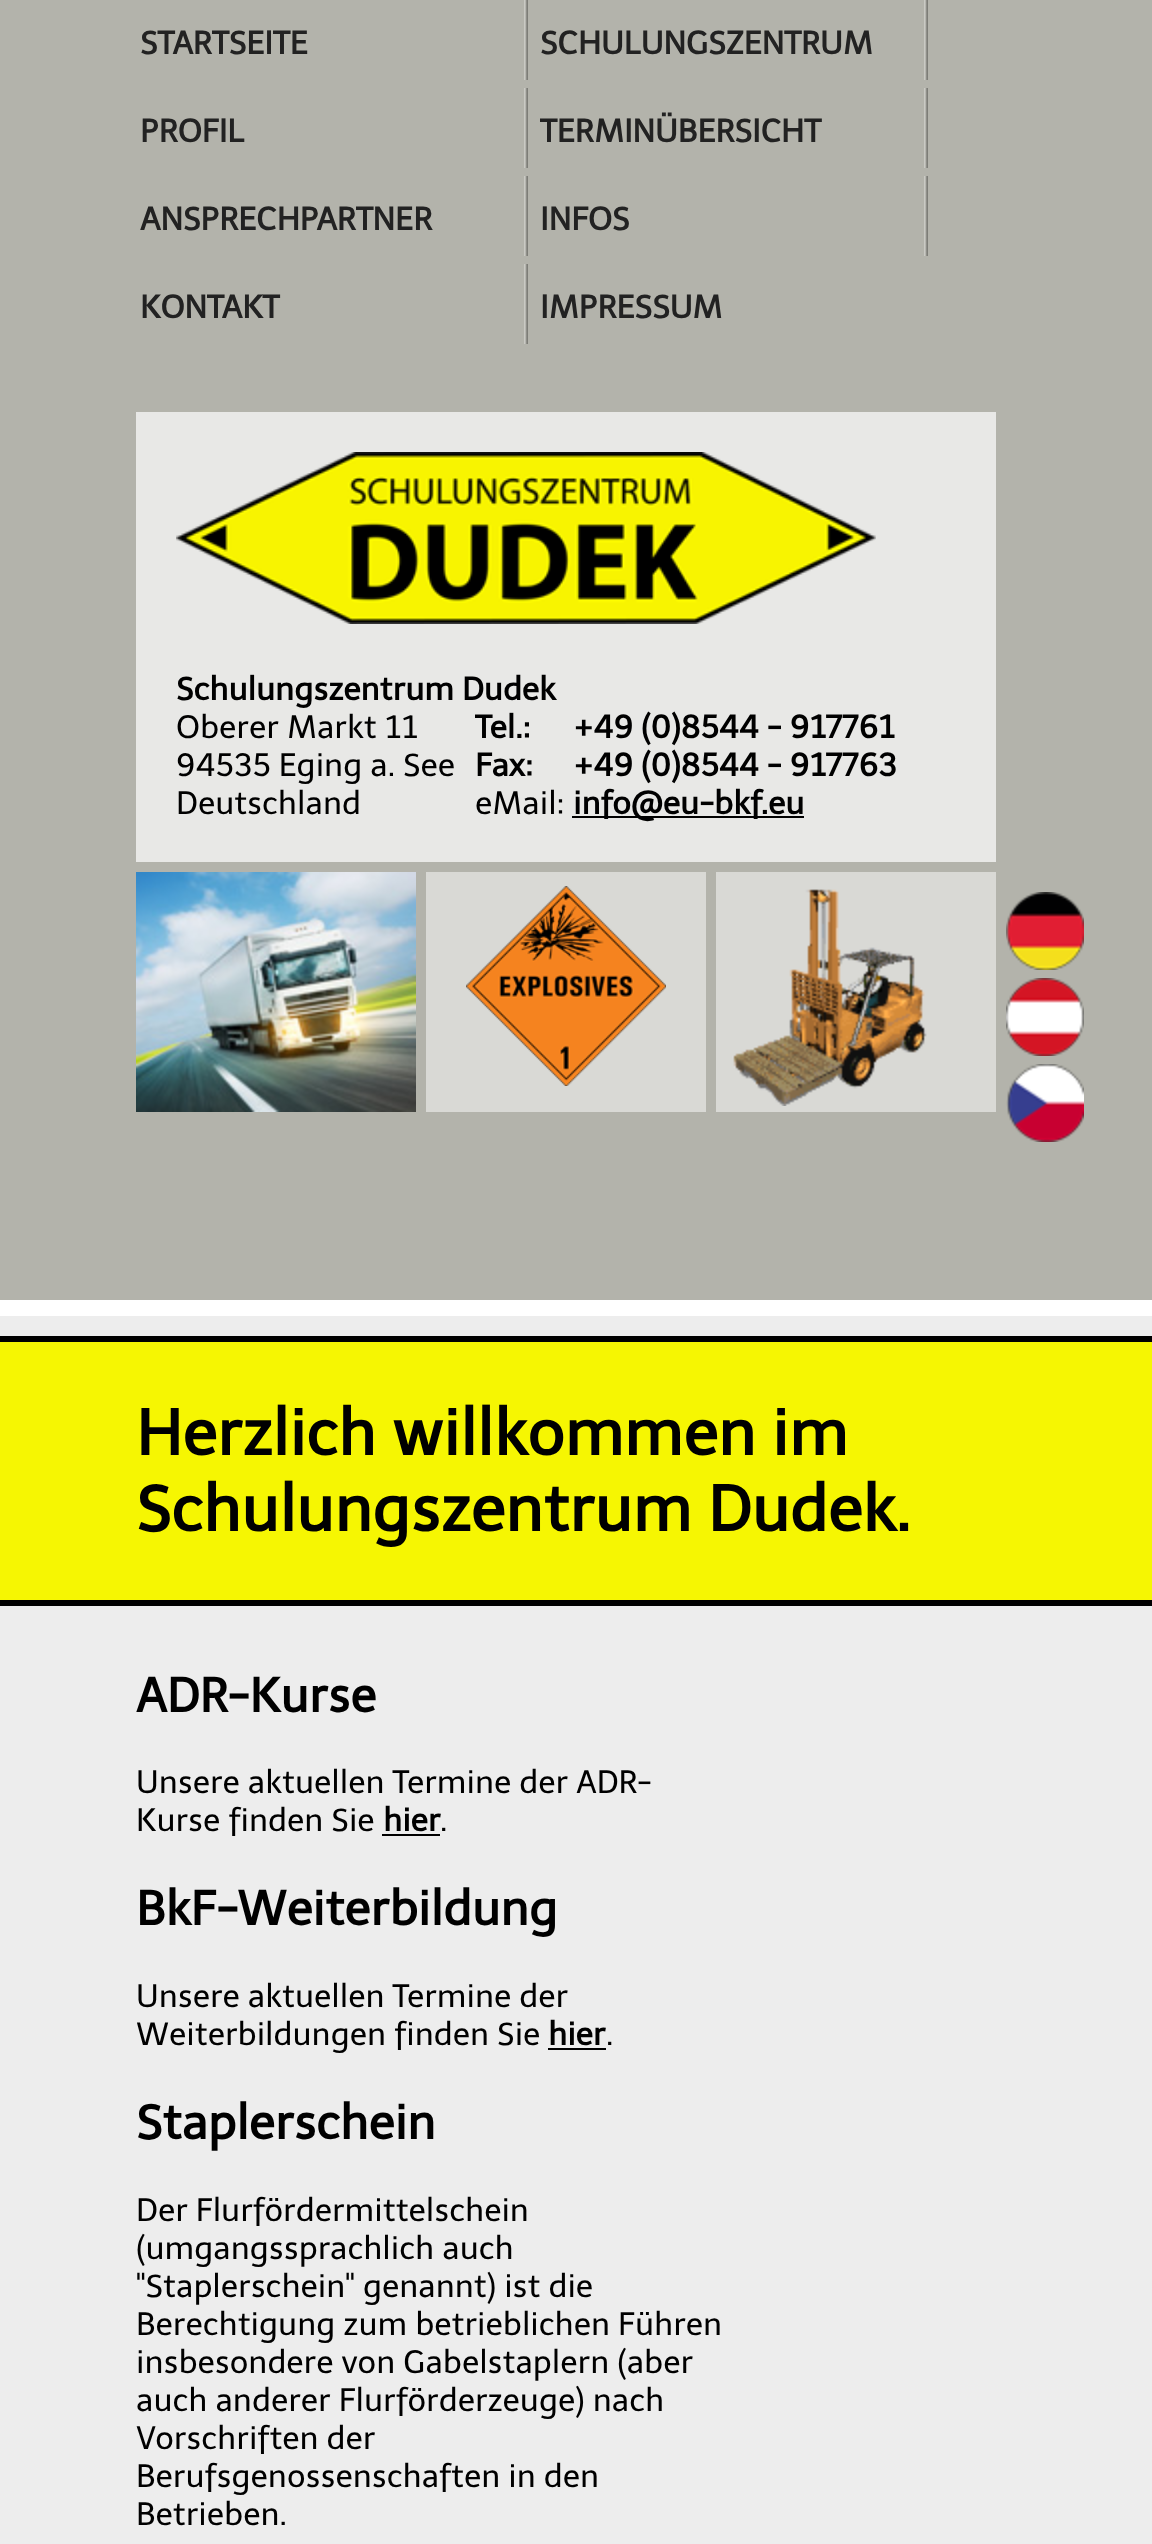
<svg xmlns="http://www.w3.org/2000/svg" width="1152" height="2544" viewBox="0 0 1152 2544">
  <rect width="100%" height="100%" fill="#ededed"/>
  <rect x="0" y="0" width="1152" height="1300" fill="#b3b3ab"/>
  <text x="140" y="54" font-family="Telex" font-size="32" font-weight="bold" fill="#222222">STARTSEITE</text>
  <image x="524" y="0" width="4" height="80" href="img1.png"/>
  <text x="540" y="54" font-family="Telex" font-size="32" font-weight="bold" fill="#222222">SCHULUNGSZENTRUM</text>
  <image x="924" y="0" width="4" height="80" href="img1.png"/>
  <text x="140" y="142" font-family="Telex" font-size="32" font-weight="bold" fill="#222222">PROFIL</text>
  <image x="524" y="88" width="4" height="80" href="img1.png"/>
  <text x="540" y="142" font-family="Telex" font-size="32" font-weight="bold" fill="#222222">TERMINÜBERSICHT</text>
  <image x="924" y="88" width="4" height="80" href="img1.png"/>
  <text x="140" y="230" font-family="Telex" font-size="32" font-weight="bold" fill="#222222">ANSPRECHPARTNER</text>
  <image x="524" y="176" width="4" height="80" href="img1.png"/>
  <text x="540" y="230" font-family="Telex" font-size="32" font-weight="bold" fill="#222222">INFOS</text>
  <image x="924" y="176" width="4" height="80" href="img1.png"/>
  <text x="140" y="318" font-family="Telex" font-size="32" font-weight="bold" fill="#222222">KONTAKT</text>
  <image x="524" y="264" width="4" height="80" href="img1.png"/>
  <text x="540" y="318" font-family="Telex" font-size="32" font-weight="bold" fill="#222222">IMPRESSUM</text>
  <rect x="136" y="412" width="860" height="450" fill="#e8e8e6"/>
  <image x="176" y="452" width="700" height="172" href="img2.png"/>
  <text x="176" y="700" font-family="Telex" font-size="32" font-weight="bold" fill="#000000">Schulungszentrum Dudek</text>
  <text x="176" y="738" font-family="Telex" font-size="32" fill="#000000">Oberer Markt 11</text>
  <text x="176" y="776" font-family="Telex" font-size="32" fill="#000000">94535 Eging a. See</text>
  <text x="176" y="814" font-family="Telex" font-size="32" fill="#000000">Deutschland</text>
  <text x="475" y="738" font-family="Telex" font-size="32" font-weight="bold" fill="#000000">Tel.:</text>
  <text x="573" y="738" font-family="Telex" font-size="32" font-weight="bold" fill="#000000">+49 (0)8544 - 917761</text>
  <text x="475" y="776" font-family="Telex" font-size="32" font-weight="bold" fill="#000000">Fax:</text>
  <text x="573" y="776" font-family="Telex" font-size="32" font-weight="bold" fill="#000000">+49 (0)8544 - 917763</text>
  <text x="475" y="814" font-family="Telex" font-size="32" fill="#000000">eMail:</text>
  <rect x="572" y="816" width="232" height="2" fill="#000000"/>
  <text x="573" y="814" font-family="Telex" font-size="32" font-weight="bold" fill="#000000">info@eu-bkf.eu</text>
  <image x="136" y="872" width="280" height="240" href="img3.png"/>
  <rect x="426" y="872" width="280" height="240" fill="#d9d9d5"/>
  <image x="466" y="886" width="200" height="200" href="img4.png"/>
  <rect x="716" y="872" width="280" height="240" fill="#d9d9d5"/>
  <image x="732" y="889" width="195" height="217" href="img5.png"/>
  <image x="1006" y="892" width="78" height="78" href="img6.png"/>
  <image x="1006" y="978" width="78" height="78" href="img7.png"/>
  <image x="1006" y="1064" width="78" height="78" href="img8.png"/>
  <rect x="0" y="1300" width="1152" height="16" fill="#ffffff"/>
  <rect x="0" y="1342" width="1152" height="258" fill="#f6f602"/>
  <rect x="0" y="1336" width="1152" height="6" fill="#000000"/>
  <rect x="0" y="1600" width="1152" height="6" fill="#000000"/>
  <text x="136" y="1455" font-family="Telex" font-size="64" font-weight="bold" fill="#000000">Herzlich willkommen im</text>
  <text x="136" y="1531" font-family="Telex" font-size="64" font-weight="bold" fill="#000000">Schulungszentrum Dudek.</text>
  <text x="136" y="1712" font-family="Telex" font-size="48" font-weight="bold" fill="#000000">ADR-Kurse</text>
  <text x="136" y="1793" font-family="Telex" font-size="32" fill="#000000">Unsere aktuellen Termine der ADR-</text>
  <text x="136" y="1831" font-family="Telex" font-size="32" fill="#000000">Kurse finden Sie</text>
  <text x="383" y="1831" font-family="Telex" font-size="32" font-weight="bold" fill="#000000">hier</text>
  <rect x="382" y="1834" width="58" height="2" fill="#000000"/>
  <text x="440" y="1831" font-family="Telex" font-size="32" fill="#000000">.</text>
  <text x="136" y="1925" font-family="Telex" font-size="48" font-weight="bold" fill="#000000">BkF-Weiterbildung</text>
  <text x="136" y="2007" font-family="Telex" font-size="32" fill="#000000">Unsere aktuellen Termine der</text>
  <text x="136" y="2045" font-family="Telex" font-size="32" fill="#000000">Weiterbildungen finden Sie</text>
  <text x="548" y="2045" font-family="Telex" font-size="32" font-weight="bold" fill="#000000">hier</text>
  <rect x="548" y="2048" width="58" height="2" fill="#000000"/>
  <text x="606" y="2045" font-family="Telex" font-size="32" fill="#000000">.</text>
  <text x="136" y="2139" font-family="Telex" font-size="48" font-weight="bold" fill="#000000">Staplerschein</text>
  <text x="136" y="2221" font-family="Telex" font-size="32" fill="#000000">Der Flurfördermittelschein</text>
  <text x="136" y="2259" font-family="Telex" font-size="32" fill="#000000">(umgangssprachlich auch</text>
  <text x="136" y="2297" font-family="Telex" font-size="32" fill="#000000">"Staplerschein" genannt) ist die</text>
  <text x="136" y="2335" font-family="Telex" font-size="32" fill="#000000">Berechtigung zum betrieblichen Führen</text>
  <text x="136" y="2373" font-family="Telex" font-size="32" fill="#000000">insbesondere von Gabelstaplern (aber</text>
  <text x="136" y="2411" font-family="Telex" font-size="32" fill="#000000">auch anderer Flurförderzeuge) nach</text>
  <text x="136" y="2449" font-family="Telex" font-size="32" fill="#000000">Vorschriften der</text>
  <text x="136" y="2487" font-family="Telex" font-size="32" fill="#000000">Berufsgenossenschaften in den</text>
  <text x="136" y="2525" font-family="Telex" font-size="32" fill="#000000">Betrieben.</text>
</svg>
